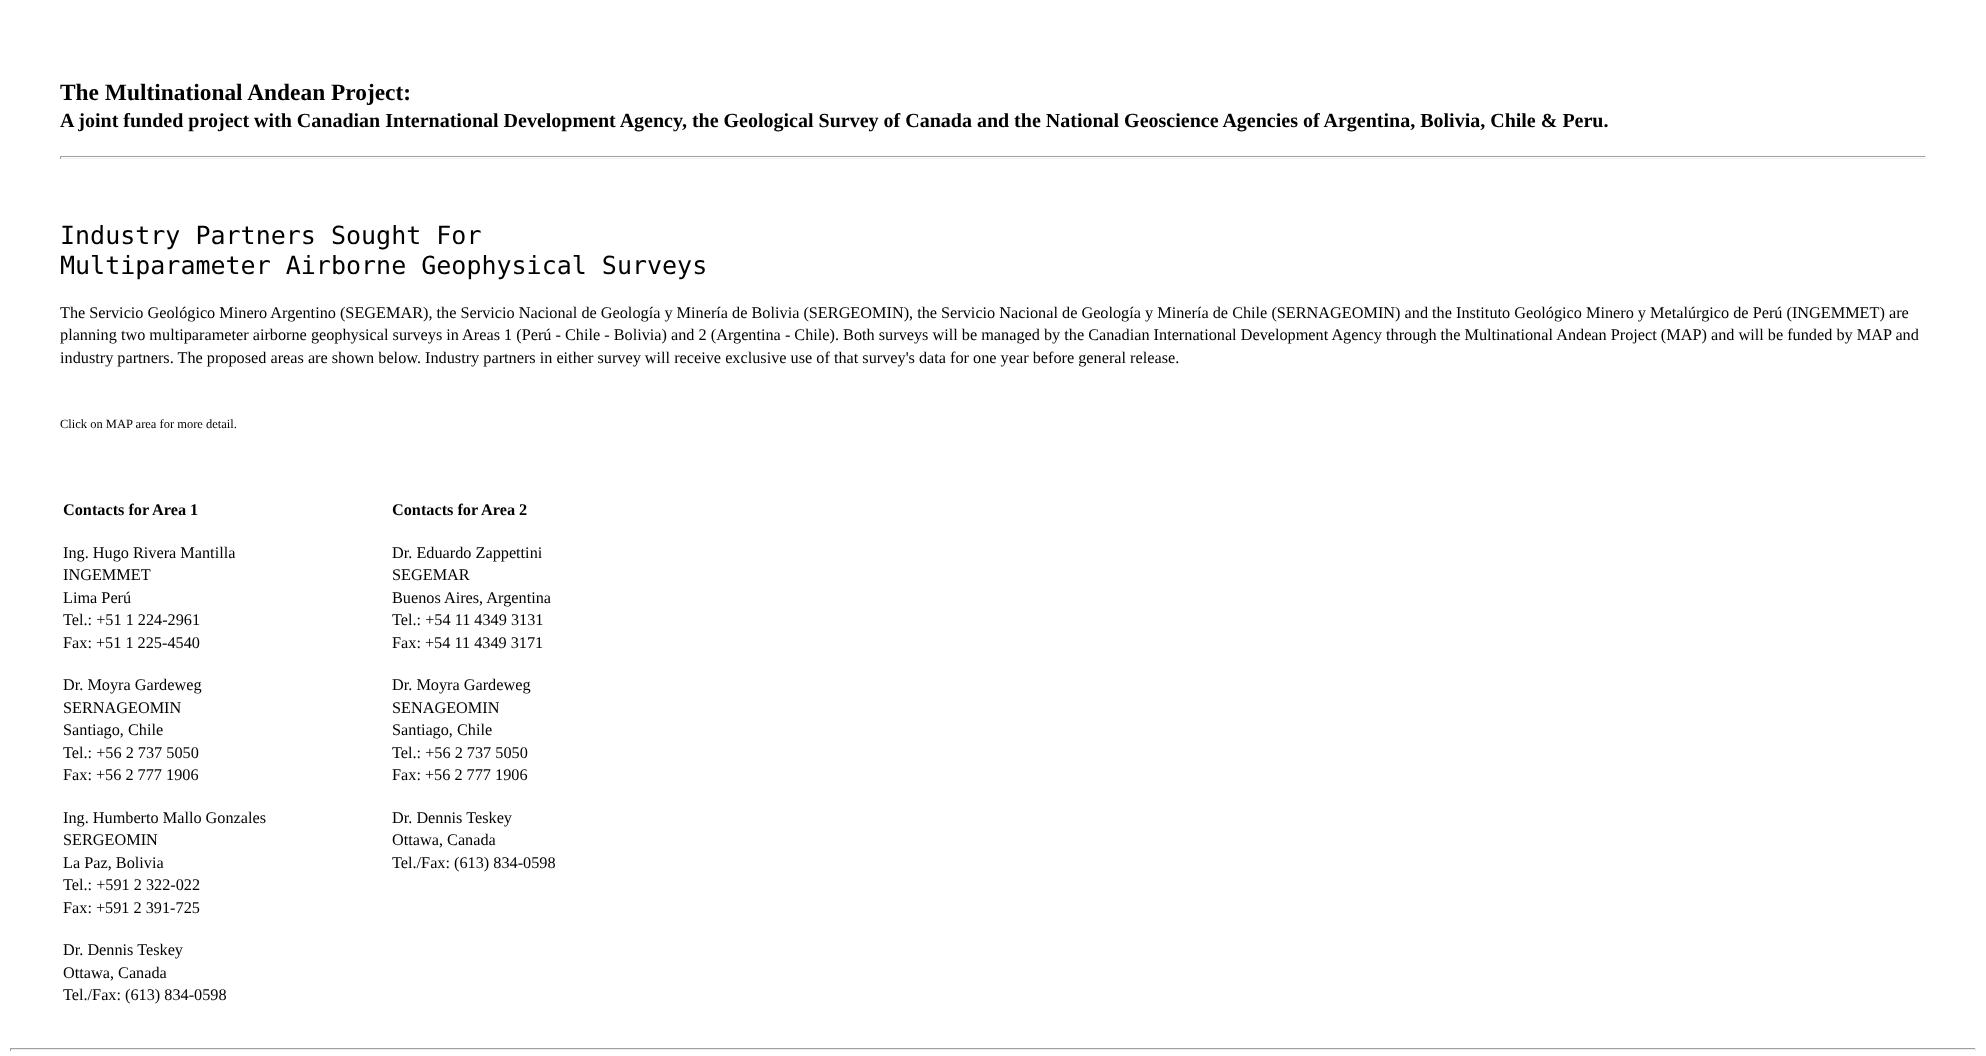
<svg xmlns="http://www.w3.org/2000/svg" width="1986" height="1056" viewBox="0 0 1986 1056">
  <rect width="100%" height="100%" fill="#ffffff"/>
  <text x="60" y="100" font-family="Liberation Serif" font-size="23.4" font-weight="bold" fill="#000000">The Multinational Andean Project:</text>
  <text x="60" y="127" font-family="Liberation Serif" font-size="20" font-weight="bold" fill="#000000">A joint funded project with Canadian International Development Agency, the Geological Survey of Canada and the National Geoscience Agencies of Argentina, Bolivia, Chile &amp; Peru.</text>
  <rect x="60" y="156" width="1866" height="1" fill="#9f9f9f"/>
  <rect x="1925" y="156" width="1" height="3" fill="#eeeeee"/>
  <rect x="60" y="158" width="1866" height="1" fill="#eeeeee"/>
  <rect x="60" y="156" width="1" height="3" fill="#9f9f9f"/>
  <text x="60" y="244" font-family="DejaVu Sans Mono" font-size="25" fill="#000000">Industry Partners Sought For</text>
  <text x="60" y="274" font-family="DejaVu Sans Mono" font-size="25" fill="#000000">Multiparameter Airborne Geophysical Surveys</text>
  <text x="60" y="318" font-family="Liberation Serif" font-size="16.25" fill="#000000">The Servicio Geológico Minero Argentino (SEGEMAR), the Servicio Nacional de Geología y Minería de Bolivia (SERGEOMIN), the Servicio Nacional de Geología y Minería de Chile (SERNAGEOMIN) and the Instituto Geológico Minero y Metalúrgico de Perú (INGEMMET) are</text>
  <text x="60" y="340" font-family="Liberation Serif" font-size="16.25" fill="#000000">planning two multiparameter airborne geophysical surveys in Areas 1 (Perú - Chile - Bolivia) and 2 (Argentina - Chile). Both surveys will be managed by the Canadian International Development Agency through the Multinational Andean Project (MAP) and will be funded by MAP and</text>
  <text x="60" y="363" font-family="Liberation Serif" font-size="16.25" fill="#000000">industry partners. The proposed areas are shown below. Industry partners in either survey will receive exclusive use of that survey's data for one year before general release.</text>
  <text x="60" y="428" font-family="Liberation Serif" font-size="12.5" fill="#000000">Click on MAP area for more detail.</text>
  <text x="63" y="515" font-family="Liberation Serif" font-size="16.25" font-weight="bold" fill="#000000">Contacts for Area 1</text>
  <text x="63" y="558" font-family="Liberation Serif" font-size="16.25" fill="#000000">Ing. Hugo Rivera Mantilla</text>
  <text x="63" y="580" font-family="Liberation Serif" font-size="16.25" fill="#000000">INGEMMET</text>
  <text x="63" y="603" font-family="Liberation Serif" font-size="16.25" fill="#000000">Lima Perú</text>
  <text x="63" y="625" font-family="Liberation Serif" font-size="16.25" fill="#000000">Tel.: +51 1 224-2961</text>
  <text x="63" y="648" font-family="Liberation Serif" font-size="16.25" fill="#000000">Fax: +51 1 225-4540</text>
  <text x="63" y="690" font-family="Liberation Serif" font-size="16.25" fill="#000000">Dr. Moyra Gardeweg</text>
  <text x="63" y="713" font-family="Liberation Serif" font-size="16.25" fill="#000000">SERNAGEOMIN</text>
  <text x="63" y="735" font-family="Liberation Serif" font-size="16.25" fill="#000000">Santiago, Chile</text>
  <text x="63" y="758" font-family="Liberation Serif" font-size="16.25" fill="#000000">Tel.: +56 2 737 5050</text>
  <text x="63" y="780" font-family="Liberation Serif" font-size="16.25" fill="#000000">Fax: +56 2 777 1906</text>
  <text x="63" y="823" font-family="Liberation Serif" font-size="16.25" fill="#000000">Ing. Humberto Mallo Gonzales</text>
  <text x="63" y="845" font-family="Liberation Serif" font-size="16.25" fill="#000000">SERGEOMIN</text>
  <text x="63" y="868" font-family="Liberation Serif" font-size="16.25" fill="#000000">La Paz, Bolivia</text>
  <text x="63" y="890" font-family="Liberation Serif" font-size="16.25" fill="#000000">Tel.: +591 2 322-022</text>
  <text x="63" y="913" font-family="Liberation Serif" font-size="16.25" fill="#000000">Fax: +591 2 391-725</text>
  <text x="63" y="955" font-family="Liberation Serif" font-size="16.25" fill="#000000">Dr. Dennis Teskey</text>
  <text x="63" y="978" font-family="Liberation Serif" font-size="16.25" fill="#000000">Ottawa, Canada</text>
  <text x="63" y="1000" font-family="Liberation Serif" font-size="16.25" fill="#000000">Tel./Fax: (613) 834-0598</text>
  <text x="392" y="515" font-family="Liberation Serif" font-size="16.25" font-weight="bold" fill="#000000">Contacts for Area 2</text>
  <text x="392" y="558" font-family="Liberation Serif" font-size="16.25" fill="#000000">Dr. Eduardo Zappettini</text>
  <text x="392" y="580" font-family="Liberation Serif" font-size="16.25" fill="#000000">SEGEMAR</text>
  <text x="392" y="603" font-family="Liberation Serif" font-size="16.25" fill="#000000">Buenos Aires, Argentina</text>
  <text x="392" y="625" font-family="Liberation Serif" font-size="16.25" fill="#000000">Tel.: +54 11 4349 3131</text>
  <text x="392" y="648" font-family="Liberation Serif" font-size="16.25" fill="#000000">Fax: +54 11 4349 3171</text>
  <text x="392" y="690" font-family="Liberation Serif" font-size="16.25" fill="#000000">Dr. Moyra Gardeweg</text>
  <text x="392" y="713" font-family="Liberation Serif" font-size="16.25" fill="#000000">SENAGEOMIN</text>
  <text x="392" y="735" font-family="Liberation Serif" font-size="16.25" fill="#000000">Santiago, Chile</text>
  <text x="392" y="758" font-family="Liberation Serif" font-size="16.25" fill="#000000">Tel.: +56 2 737 5050</text>
  <text x="392" y="780" font-family="Liberation Serif" font-size="16.25" fill="#000000">Fax: +56 2 777 1906</text>
  <text x="392" y="823" font-family="Liberation Serif" font-size="16.25" fill="#000000">Dr. Dennis Teskey</text>
  <text x="392" y="845" font-family="Liberation Serif" font-size="16.25" fill="#000000">Ottawa, Canada</text>
  <text x="392" y="868" font-family="Liberation Serif" font-size="16.25" fill="#000000">Tel./Fax: (613) 834-0598</text>
  <rect x="10" y="1048" width="1966" height="1" fill="#9f9f9f"/>
  <rect x="1975" y="1048" width="1" height="3" fill="#eeeeee"/>
  <rect x="10" y="1049" width="1966" height="1" fill="#eeeeee"/>
  <rect x="10" y="1048" width="1" height="3" fill="#9f9f9f"/>
</svg>
